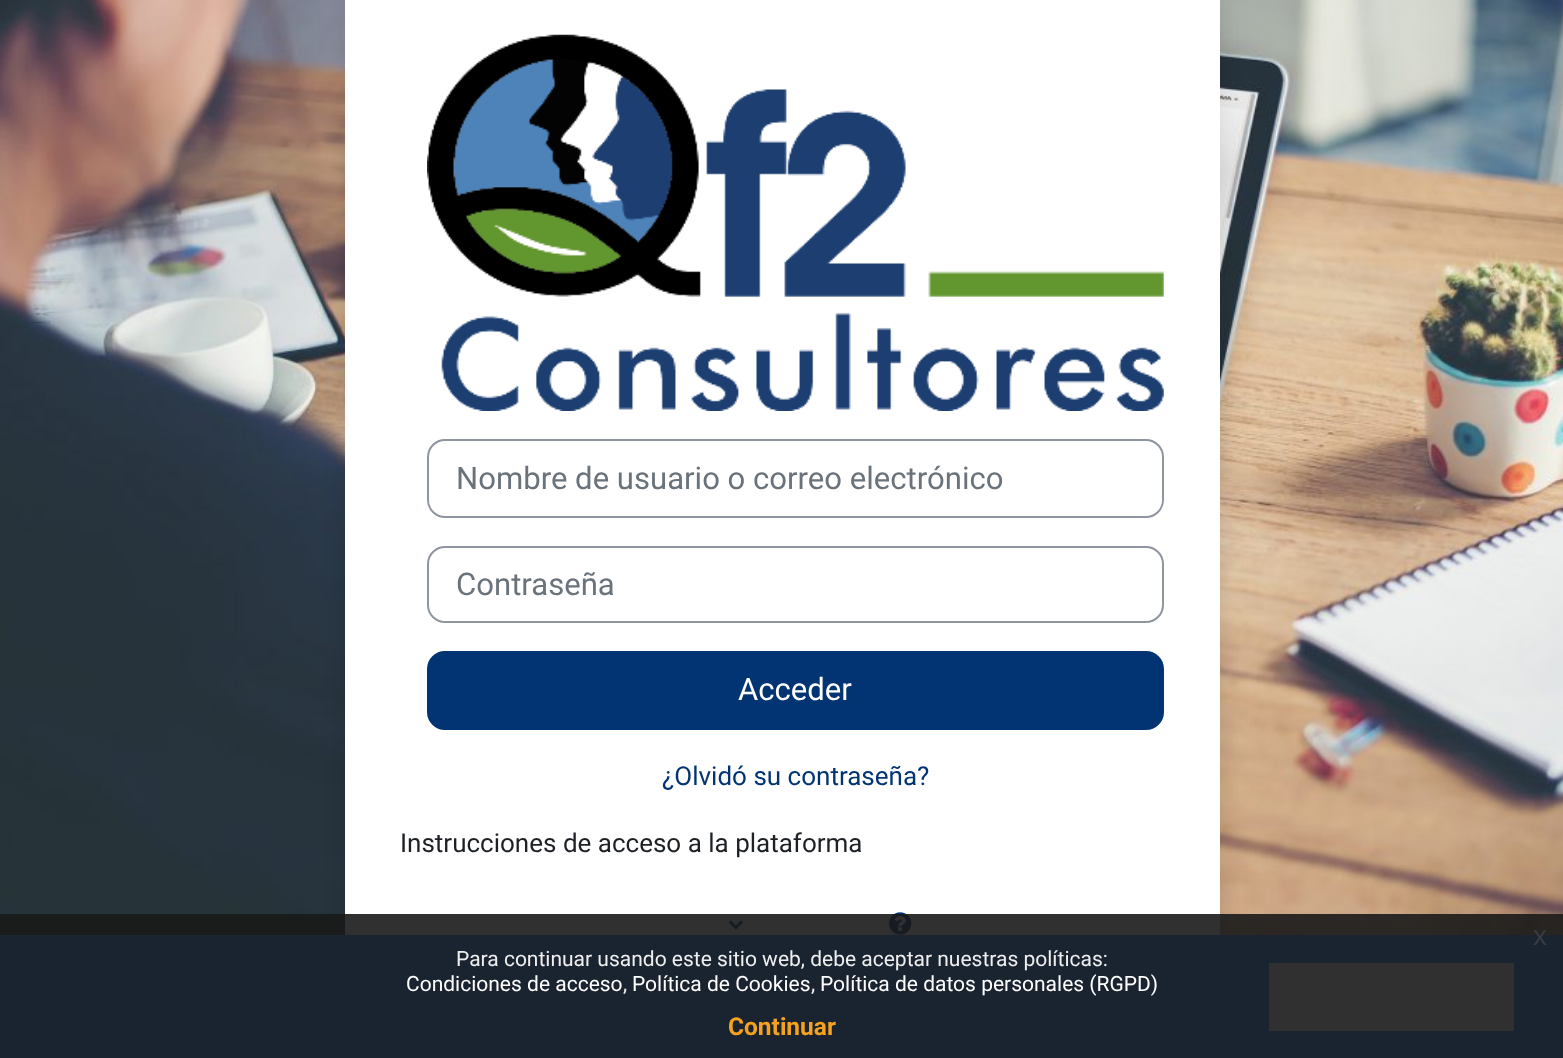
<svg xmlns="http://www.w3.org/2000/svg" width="1563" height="1058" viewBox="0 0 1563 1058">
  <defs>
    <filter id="blur1" x="-50%" y="-200%" width="200%" height="500%"><feGaussianBlur stdDeviation="14"/></filter>
  </defs>
  <rect width="100%" height="100%" fill="#ffffff"/>
  <image x="0" y="0" width="1563" height="935" href="img1.png"/>
  <rect x="345" y="-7" width="875" height="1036" rx="14" fill="#000000" fill-opacity="0.15" filter="url(#blur1)"/>
  <rect x="345" y="0" width="875" height="935" fill="#ffffff"/>
  <image x="427" y="34" width="737" height="377" href="img2.png"/>
  <rect x="428" y="440" width="735" height="77" rx="17" fill="none" stroke="#8f959e" stroke-width="2"/>
  <text x="456" y="489" font-family="Roboto" font-size="31.1" fill="#6a737b">Nombre de usuario o correo electrónico</text>
  <rect x="428" y="547" width="735" height="75" rx="17" fill="none" stroke="#8f959e" stroke-width="2"/>
  <text x="456" y="595" font-family="Roboto" font-size="31.1" fill="#6a737b">Contraseña</text>
  <rect x="428" y="652" width="735" height="77" rx="17" fill="#023473" stroke="#023473" stroke-width="2"/>
  <text x="738" y="700" font-family="Roboto" font-size="31.1" fill="#ffffff">Acceder</text>
  <text x="662" y="785" font-family="Roboto" font-size="26" fill="#023473">¿Olvidó su contraseña?</text>
  <text x="400" y="852" font-family="Roboto" font-size="26" fill="#1d2125">Instrucciones de acceso a la plataforma</text>
  <image x="728" y="920" width="15" height="10" href="img3.png"/>
  <image x="889" y="912" width="23" height="23" href="img4.png"/>
  <rect x="0" y="935" width="1563" height="123" fill="#237afc"/>
  <rect x="1269" y="963" width="245" height="68" fill="#ffffff"/>
  <rect x="0" y="914" width="1563" height="144" fill="#191919" fill-opacity="0.9"/>
  <text x="1533" y="945" font-family="Liberation Sans" font-size="28" fill="#393c42">x</text>
  <text x="456" y="966" font-family="Roboto" font-size="21" fill="#efefef">Para continuar usando este sitio web, debe aceptar nuestras políticas:</text>
  <text x="406" y="991" font-family="Roboto" font-size="21" fill="#ffffff">Condiciones de acceso</text>
  <text x="623" y="991" font-family="Roboto" font-size="21" fill="#efefef">,</text>
  <text x="632" y="991" font-family="Roboto" font-size="21" fill="#ffffff">Política de Cookies</text>
  <text x="811" y="991" font-family="Roboto" font-size="21" fill="#efefef">,</text>
  <text x="820" y="991" font-family="Roboto" font-size="21" fill="#ffffff">Política de datos personales (RGPD)</text>
  <text x="728" y="1035" font-family="Roboto" font-size="24.5" font-weight="bold" fill="#f6a21d">Continuar</text>
</svg>
